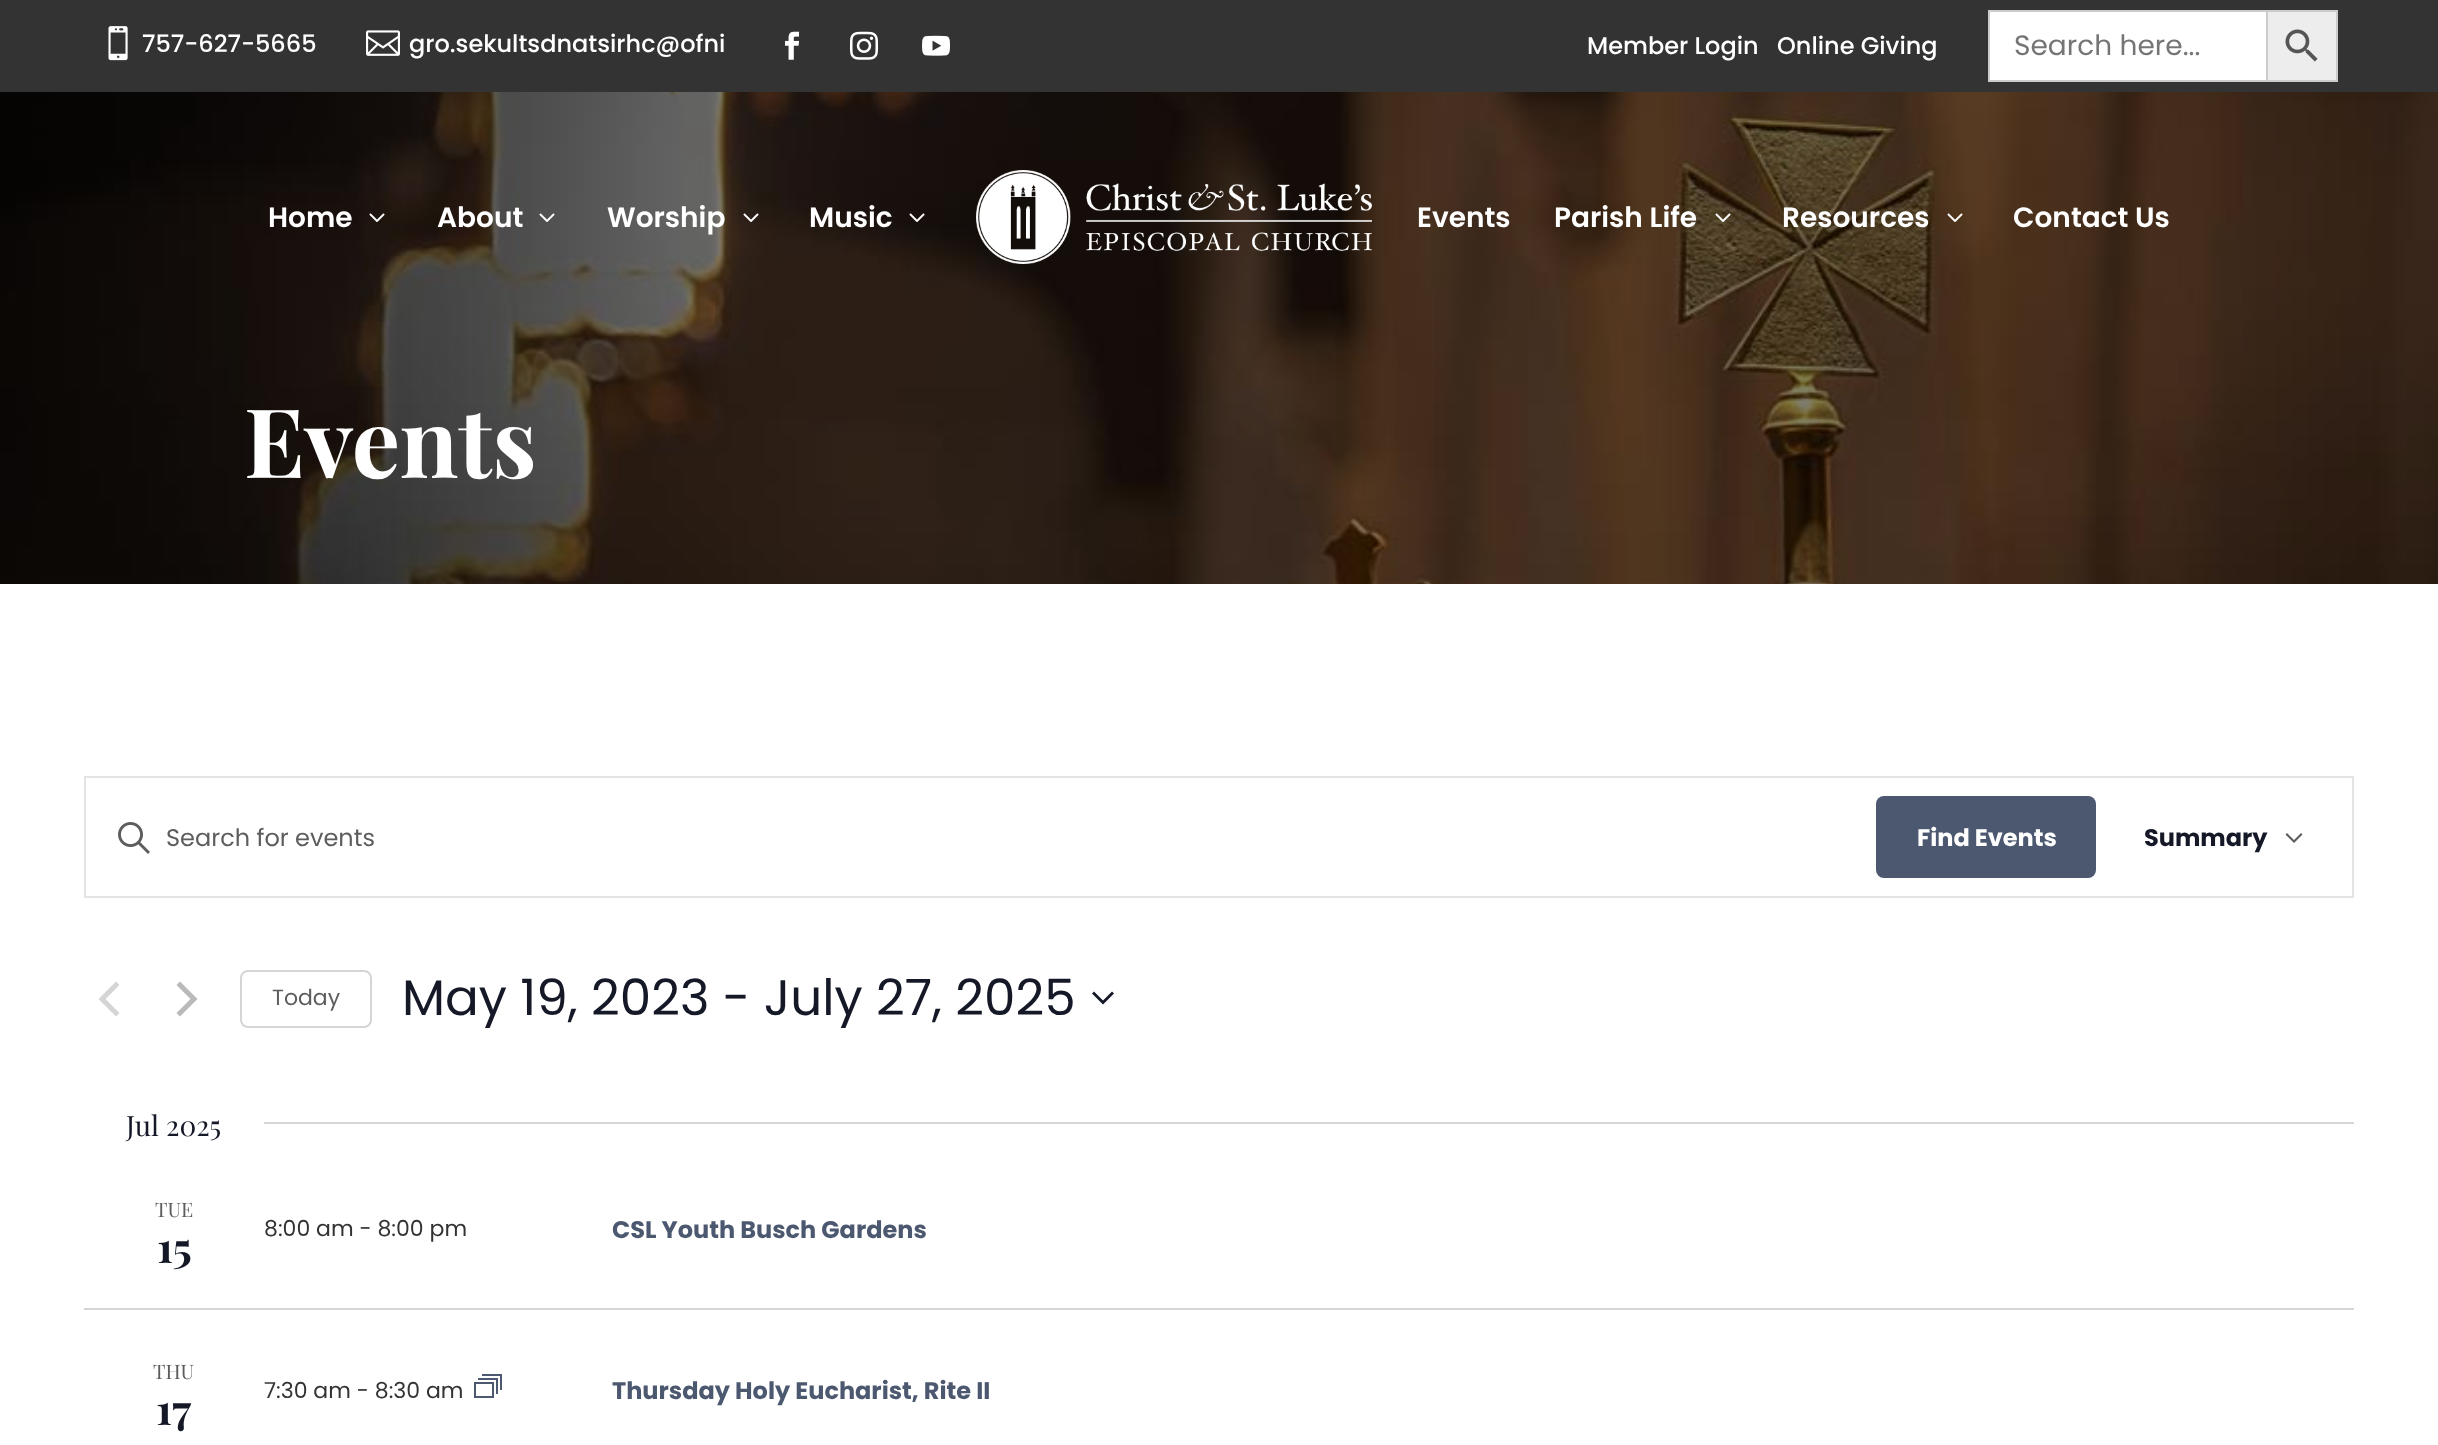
<svg xmlns="http://www.w3.org/2000/svg" width="2438" height="1445" viewBox="0 0 2438 1445">
  <rect width="100%" height="100%" fill="#ffffff"/>
  <image x="0" y="92" width="2438" height="492" href="img1.png"/>
  <rect x="0" y="0" width="2438" height="92" fill="#333333"/>
  <image x="108" y="26" width="20" height="35" href="img2.png"/>
  <text x="142" y="52" font-family="Poppins" font-size="24" font-weight="500" fill="#ffffff">757-627-5665</text>
  <image x="366" y="30" width="34" height="26" href="img3.png"/>
  <text x="409" y="52" font-family="Poppins" font-size="24" font-weight="500" fill="#ffffff">gro.sekultsdnatsirhc@ofni</text>
  <image x="785" y="31" width="15" height="29" href="img4.png"/>
  <image x="850" y="31" width="28" height="29" href="img5.png"/>
  <image x="922" y="35" width="28" height="21" href="img6.png"/>
  <text x="1587" y="54" font-family="Poppins" font-size="24" font-weight="500" fill="#ffffff">Member Login</text>
  <text x="1777" y="54" font-family="Poppins" font-size="24" font-weight="500" fill="#ffffff">Online Giving</text>
  <rect x="1990" y="12" width="276" height="68" fill="#ffffff"/>
  <rect x="1988" y="10" width="278" height="2" fill="#cccccc"/>
  <rect x="1988" y="80" width="278" height="2" fill="#cccccc"/>
  <rect x="1988" y="10" width="2" height="72" fill="#cccccc"/>
  <text x="2014" y="55" font-family="Poppins" font-size="28" fill="#757575">Search here...</text>
  <rect x="2267" y="11" width="70" height="70" fill="#ededed" stroke="#cccccc" stroke-width="2"/>
  <image x="2285" y="29" width="33" height="33" href="img7.png"/>
  <text x="268" y="227" font-family="Poppins" font-size="28" font-weight="600" fill="#ffffff">Home</text>
  <image x="369" y="213" width="16" height="9" href="img8.png"/>
  <text x="437" y="227" font-family="Poppins" font-size="28" font-weight="600" fill="#ffffff">About</text>
  <image x="539" y="213" width="16" height="9" href="img9.png"/>
  <text x="607" y="227" font-family="Poppins" font-size="28" font-weight="600" fill="#ffffff">Worship</text>
  <image x="743" y="213" width="16" height="9" href="img10.png"/>
  <text x="809" y="227" font-family="Poppins" font-size="28" font-weight="600" fill="#ffffff">Music</text>
  <image x="909" y="213" width="16" height="9" href="img11.png"/>
  <image x="976" y="170" width="396" height="94" href="img12.png"/>
  <text x="1417" y="227" font-family="Poppins" font-size="28" font-weight="600" fill="#ffffff">Events</text>
  <text x="1554" y="227" font-family="Poppins" font-size="28" font-weight="600" fill="#ffffff">Parish Life</text>
  <image x="1715" y="213" width="16" height="9" href="img13.png"/>
  <text x="1782" y="227" font-family="Poppins" font-size="28" font-weight="600" fill="#ffffff">Resources</text>
  <image x="1947" y="213" width="16" height="9" href="img14.png"/>
  <text x="2013" y="227" font-family="Poppins" font-size="28" font-weight="600" fill="#ffffff">Contact Us</text>
  <text x="244" y="478" font-family="Playfair Display" font-size="96" font-weight="bold" fill="#ffffff">Events</text>
  <rect x="85" y="777" width="2268" height="120" fill="none" stroke="#e4e4e4" stroke-width="2"/>
  <image x="118" y="822" width="32" height="32" href="img15.png"/>
  <text x="166" y="846" font-family="Poppins" font-size="24" fill="#5d5d5d">Search for events</text>
  <rect x="1876" y="796" width="220" height="82" rx="8" fill="#4c586f"/>
  <text x="1917" y="846" font-family="Poppins" font-size="24" font-weight="bold" fill="#ffffff">Find Events</text>
  <text x="2144" y="846" font-family="Poppins" font-size="24" font-weight="bold" fill="#141827">Summary</text>
  <path d="M2287 833L2294 840L2301 833L2302.5 834.5L2294 843L2285.5 834.5Z" fill="#5d5d5d" fill-rule="evenodd"/>
  <path d="M119.5 1013L116 1016.5L98.5 999L116 981.5L119.5 985L105.5 999Z" fill="#d5d5d5"/>
  <path d="M176.5 985L180 981.5L197.5 999L180 1016.5L176.5 1013L190.5 999Z" fill="#bababa"/>
  <rect x="241" y="971" width="130" height="56" rx="7" fill="none" stroke="#d5d5d5" stroke-width="2"/>
  <text x="272" y="1005" font-family="Poppins" font-size="22" fill="#5d5d5d">Today</text>
  <text x="402" y="1015" font-family="Poppins" font-size="50" fill="#141827">May 19, 2023 - July 27, 2025</text>
  <path d="M1094 991.5L1103 1000.5L1112 991.5L1114 993.5L1103 1004.5L1092 993.5Z" fill="#141827" fill-rule="evenodd"/>
  <text x="126" y="1136" font-family="Playfair Display" font-size="28" fill="#141827">Jul 2025</text>
  <rect x="264" y="1122" width="2090" height="2" fill="#d5d5d5"/>
  <rect x="84" y="1308" width="2270" height="2" fill="#d5d5d5"/>
  <text x="155" y="1217" font-family="Playfair Display" font-size="20" fill="#5d5d5d">TUE</text>
  <text x="157" y="1263" font-family="Playfair Display" font-size="42" font-weight="bold" fill="#141827">15</text>
  <text x="264" y="1236" font-family="Poppins" font-size="22" fill="#333333">8:00 am - 8:00 pm</text>
  <text x="612" y="1238" font-family="Poppins" font-size="24" font-weight="bold" fill="#4c586f">CSL Youth Busch Gardens</text>
  <text x="153" y="1379" font-family="Playfair Display" font-size="20" fill="#5d5d5d">THU</text>
  <text x="156" y="1425" font-family="Playfair Display" font-size="42" font-weight="bold" fill="#141827">17</text>
  <text x="264" y="1398" font-family="Poppins" font-size="22" fill="#333333">7:30 am - 8:30 am</text>
  <rect x="475" y="1383" width="18" height="14" fill="none" stroke="#4c586f" stroke-width="2"/>
  <path d="M478 1379H497V1394M482 1375H501V1390" fill="none" stroke="#4c586f" stroke-width="2"/>
  <text x="612" y="1399" font-family="Poppins" font-size="24" font-weight="bold" fill="#4c586f">Thursday Holy Eucharist, Rite II</text>
</svg>
